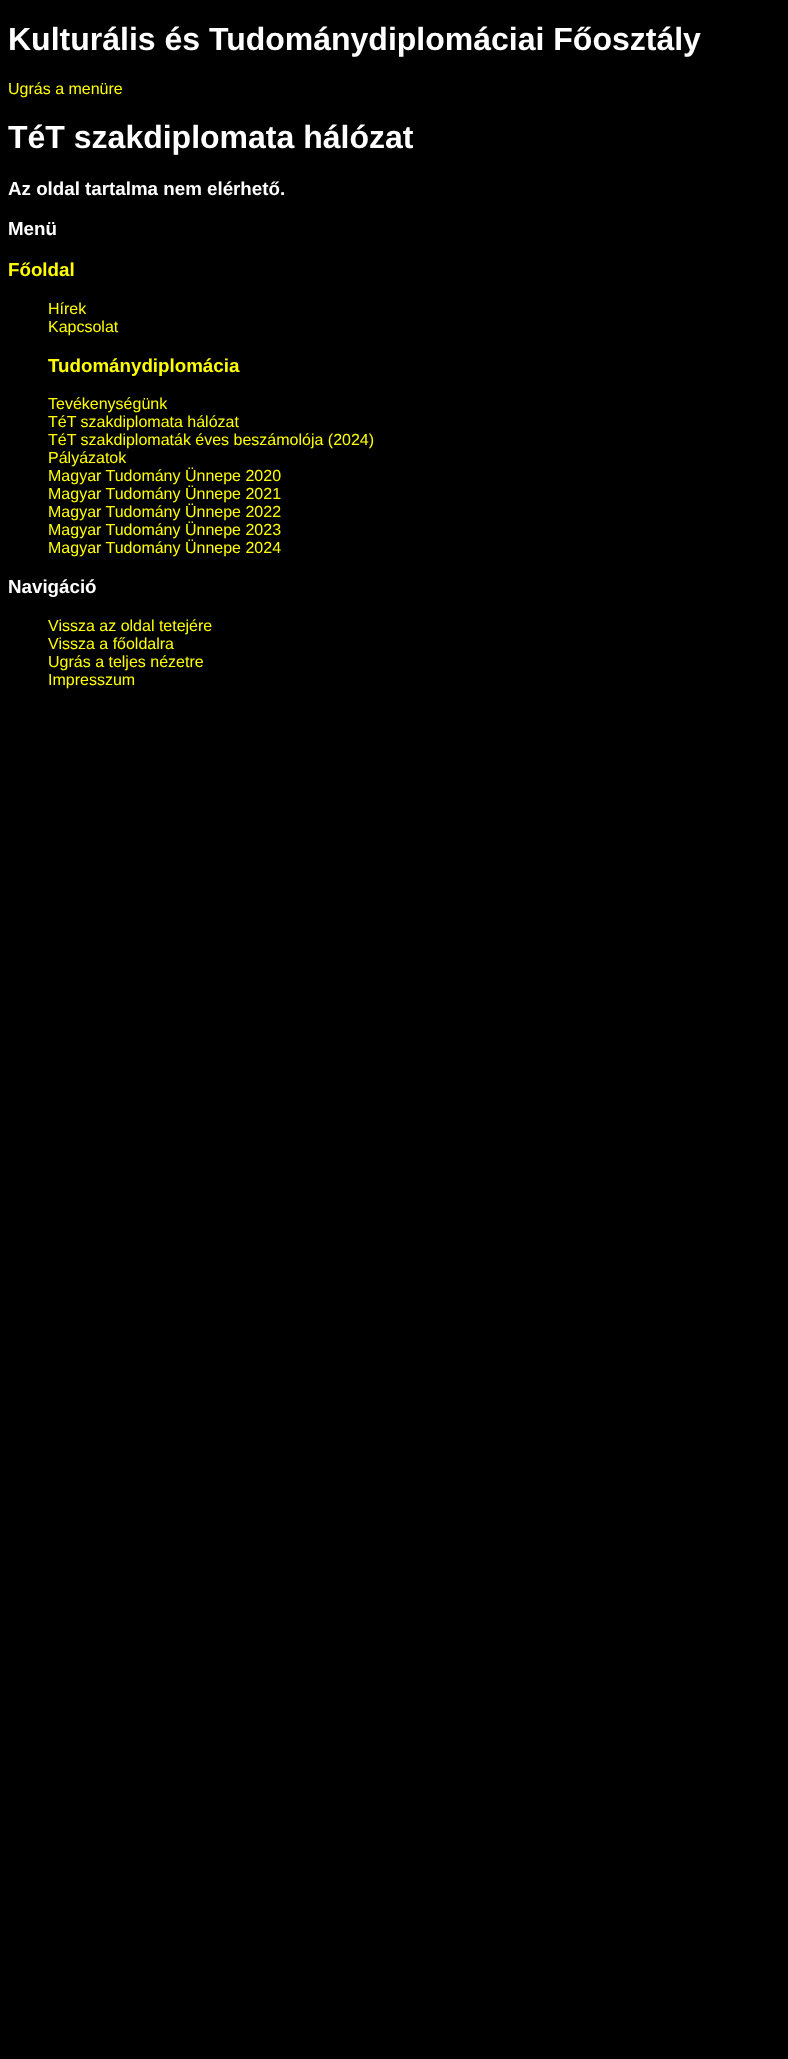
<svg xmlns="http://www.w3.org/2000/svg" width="788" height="2059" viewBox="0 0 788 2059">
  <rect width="100%" height="100%" fill="#000000"/>
  <text x="8" y="50" font-family="Liberation Sans" font-size="32" font-weight="bold" fill="#ffffff">Kulturális és Tudománydiplomáciai Főosztály</text>
  <text x="8" y="94" font-family="Liberation Sans" font-size="16" fill="#ffff00">Ugrás a menüre</text>
  <text x="8" y="148" font-family="Liberation Sans" font-size="32" font-weight="bold" fill="#ffffff">TéT szakdiplomata hálózat</text>
  <text x="8" y="195" font-family="Liberation Sans" font-size="18.75" font-weight="bold" fill="#ffffff">Az oldal tartalma nem elérhető.</text>
  <text x="8" y="235" font-family="Liberation Sans" font-size="18.75" font-weight="bold" fill="#ffffff">Menü</text>
  <text x="8" y="276" font-family="Liberation Sans" font-size="18.75" font-weight="bold" fill="#ffff00">Főoldal</text>
  <text x="48" y="314" font-family="Liberation Sans" font-size="16" fill="#ffff00">Hírek</text>
  <text x="48" y="332" font-family="Liberation Sans" font-size="16" fill="#ffff00">Kapcsolat</text>
  <text x="48" y="372" font-family="Liberation Sans" font-size="18.75" font-weight="bold" fill="#ffff00">Tudománydiplomácia</text>
  <text x="48" y="409" font-family="Liberation Sans" font-size="16" fill="#ffff00">Tevékenységünk</text>
  <text x="48" y="427" font-family="Liberation Sans" font-size="16" fill="#ffff00">TéT szakdiplomata hálózat</text>
  <text x="48" y="445" font-family="Liberation Sans" font-size="16" fill="#ffff00">TéT szakdiplomaták éves beszámolója (2024)</text>
  <text x="48" y="463" font-family="Liberation Sans" font-size="16" fill="#ffff00">Pályázatok</text>
  <text x="48" y="481" font-family="Liberation Sans" font-size="16" fill="#ffff00">Magyar Tudomány Ünnepe 2020</text>
  <text x="48" y="499" font-family="Liberation Sans" font-size="16" fill="#ffff00">Magyar Tudomány Ünnepe 2021</text>
  <text x="48" y="517" font-family="Liberation Sans" font-size="16" fill="#ffff00">Magyar Tudomány Ünnepe 2022</text>
  <text x="48" y="535" font-family="Liberation Sans" font-size="16" fill="#ffff00">Magyar Tudomány Ünnepe 2023</text>
  <text x="48" y="553" font-family="Liberation Sans" font-size="16" fill="#ffff00">Magyar Tudomány Ünnepe 2024</text>
  <text x="8" y="593" font-family="Liberation Sans" font-size="18.75" font-weight="bold" fill="#ffffff">Navigáció</text>
  <text x="48" y="631" font-family="Liberation Sans" font-size="16" fill="#ffff00">Vissza az oldal tetejére</text>
  <text x="48" y="649" font-family="Liberation Sans" font-size="16" fill="#ffff00">Vissza a főoldalra</text>
  <text x="48" y="667" font-family="Liberation Sans" font-size="16" fill="#ffff00">Ugrás a teljes nézetre</text>
  <text x="48" y="685" font-family="Liberation Sans" font-size="16" fill="#ffff00">Impresszum</text>
</svg>
